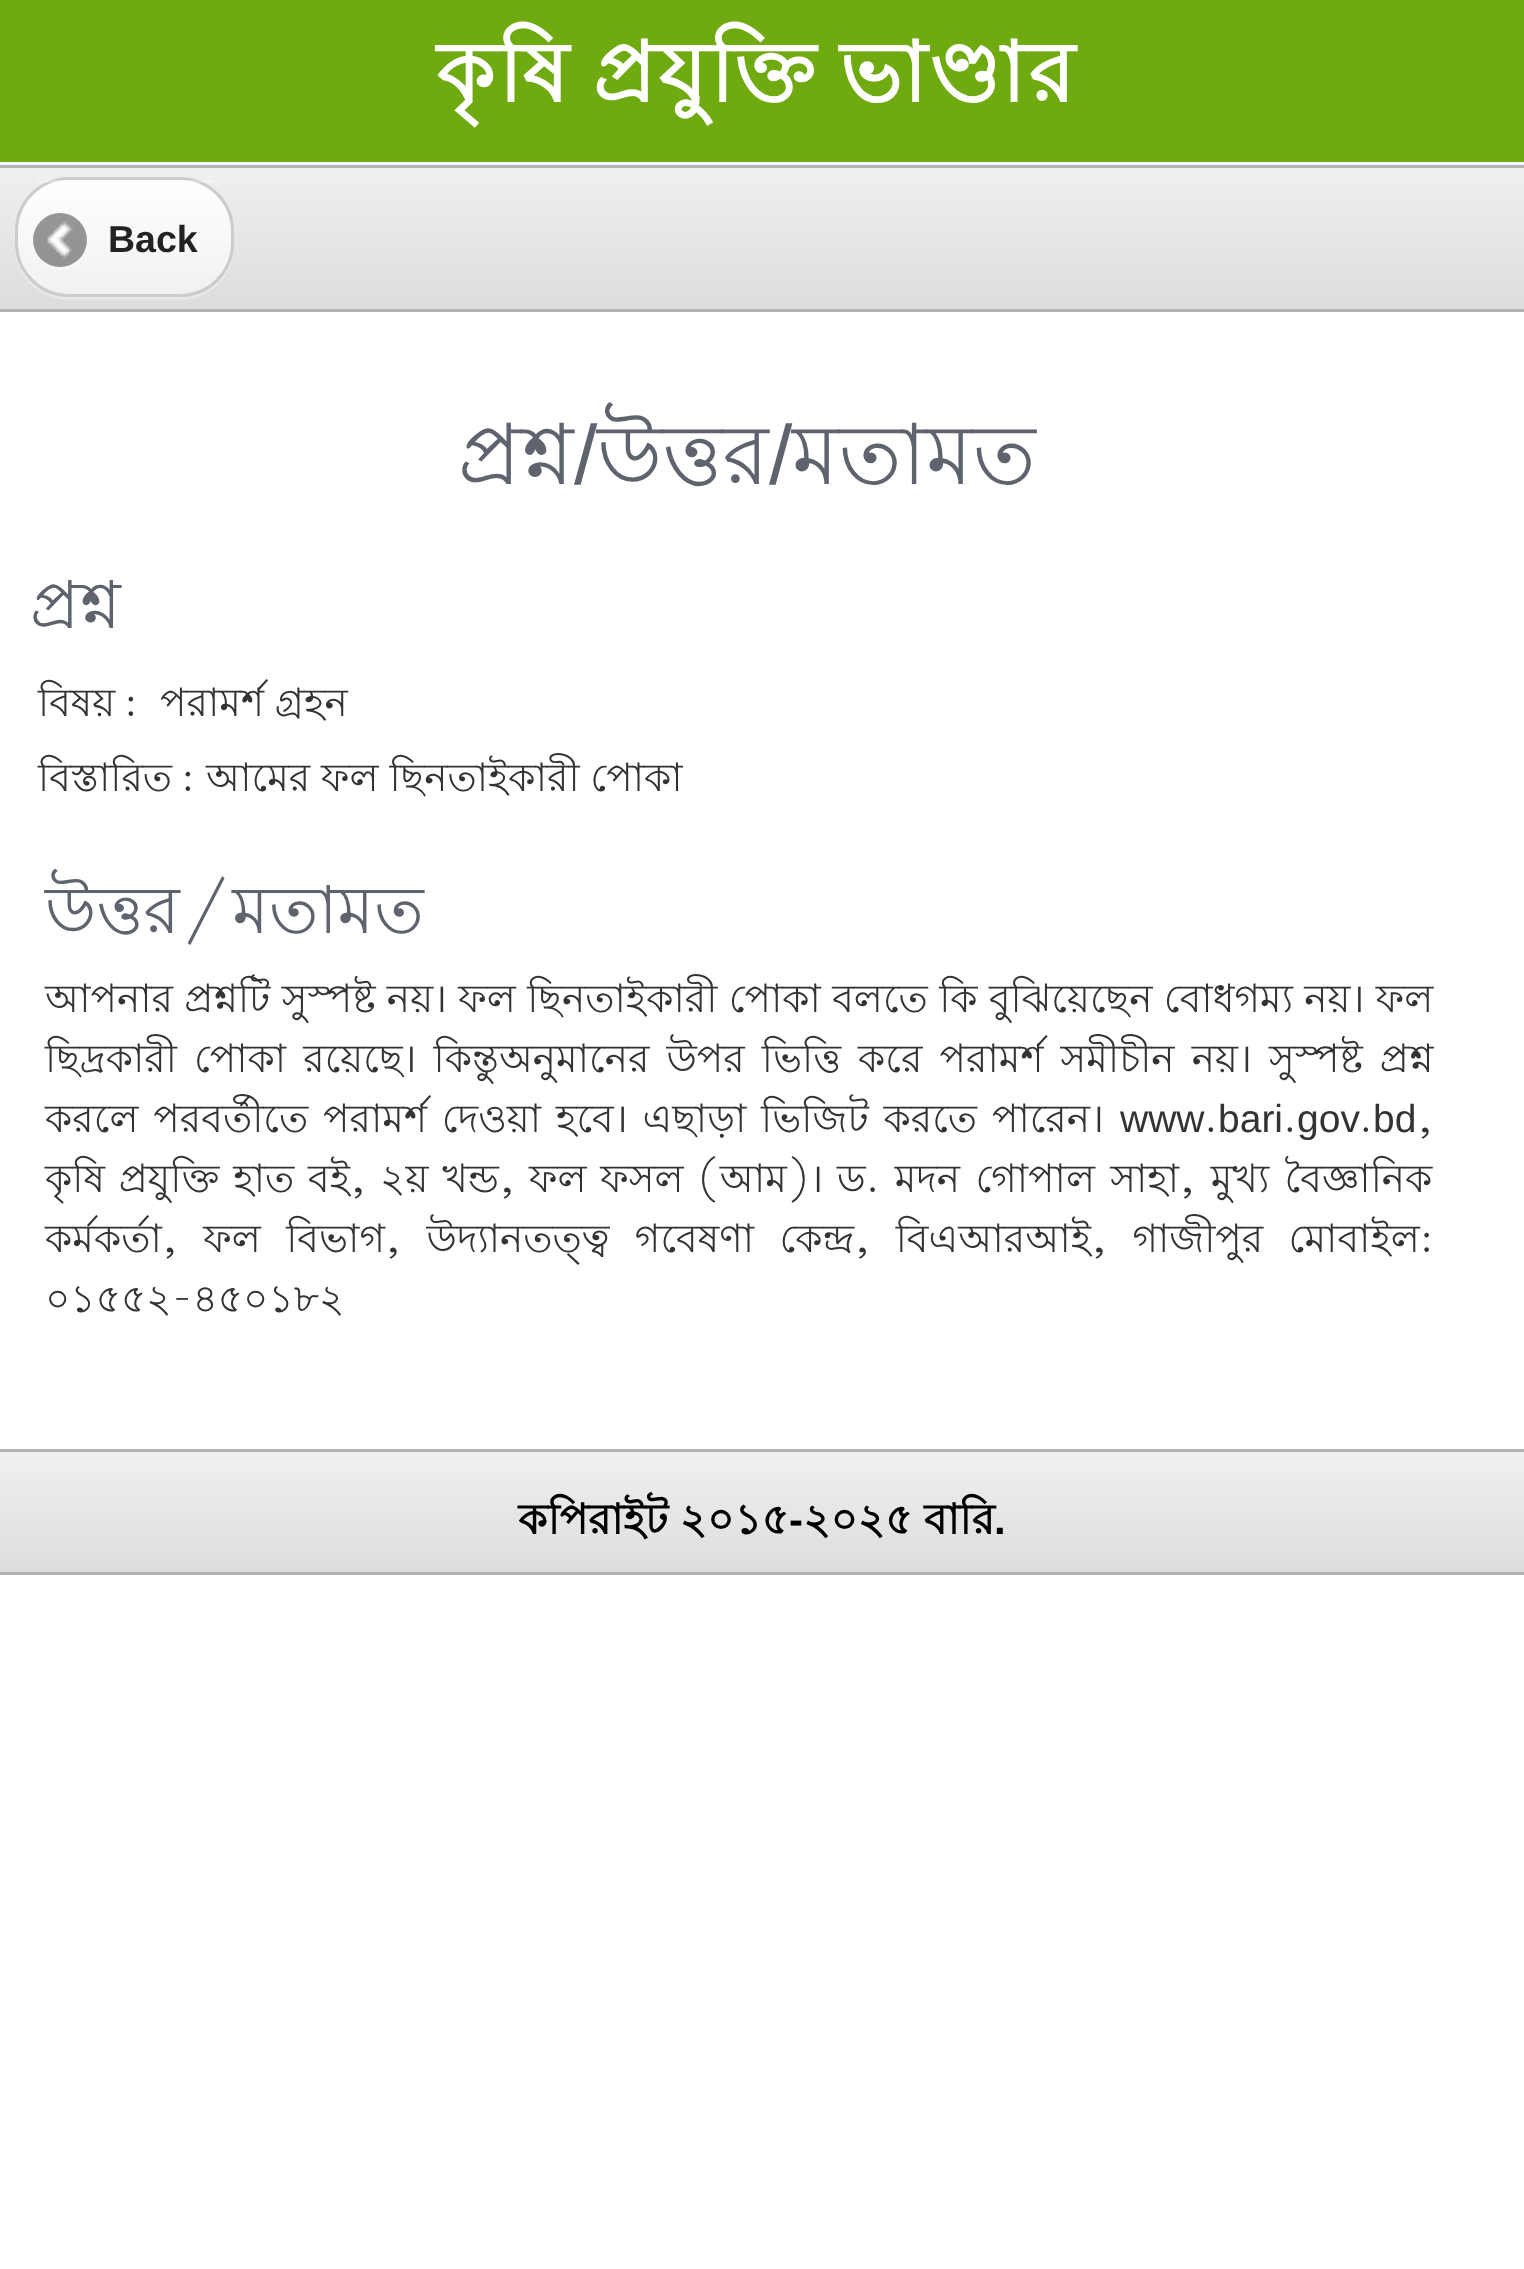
<svg xmlns="http://www.w3.org/2000/svg" width="1524" height="2269" viewBox="0 0 1524 2269">
  <defs>
    <linearGradient id="g1" gradientUnits="userSpaceOnUse" x1="762" y1="168" x2="762" y2="309"><stop offset="0" stop-color="#f0f0f0"/><stop offset="1" stop-color="#dddddd"/></linearGradient>
    <linearGradient id="g2" gradientUnits="userSpaceOnUse" x1="125" y1="180" x2="125" y2="294"><stop offset="0" stop-color="#ffffff"/><stop offset="1" stop-color="#f1f1f1"/></linearGradient>
    <linearGradient id="g3" gradientUnits="userSpaceOnUse" x1="762" y1="1452" x2="762" y2="1572"><stop offset="0" stop-color="#f0f0f0"/><stop offset="1" stop-color="#dddddd"/></linearGradient>
  </defs>
  <rect width="100%" height="100%" fill="#ffffff"/>
  <rect x="0" y="162" width="1524" height="3" fill="#f6f6f7"/>
  <rect x="0" y="0" width="1524" height="162" fill="#6faa10"/>
  <text x="436" y="102" word-spacing="-5" font-family="Lohit Bengali" font-size="84" font-weight="bold" letter-spacing="3" fill="#ffffff">কৃষি প্রযুক্তি ভাণ্ডার</text>
  <rect x="0" y="168" width="1524" height="141" fill="url(#g1)"/>
  <rect x="0" y="165" width="1524" height="3" fill="#b3b3b3"/>
  <rect x="0" y="309" width="1524" height="3" fill="#b3b3b3"/>
  <path d="M15 243V246C15 276 39 300 69 300H180C210 300 234 276 234 246V243C234 273 210 297 180 297H69C39 297 15 273 15 243Z" fill="#ffffff" fill-opacity="0.3"/>
  <rect x="18" y="180" width="213" height="114" rx="51" fill="url(#g2)"/>
  <rect x="16.5" y="178.5" width="216" height="117" rx="52.5" fill="none" stroke="#cccccc" stroke-width="3"/>
  <rect x="36" y="180" width="177" height="3" fill="#ffffff" fill-opacity="0.3"/>
  <path d="M87 242C85 275 35 275 33 242C33 247 34 253 38 258C53 281 88 269 87 242Z" fill="#ffffff" fill-opacity="0.4"/>
  <circle cx="60" cy="240" r="27" fill="#000000" fill-opacity="0.4"/>
  <image x="47" y="221" width="26" height="38" href="img1.png"/>
  <text x="108" y="252" font-family="Liberation Sans" font-size="37.5" font-weight="bold" fill="#222222">Back</text>
  <text x="458" y="484" font-family="Lohit Bengali" font-size="84" fill="#5e636d">প্রশ্ন</text>
  <text x="574" y="484" font-family="Liberation Sans" font-size="84" fill="#5e636d">/</text>
  <text x="597" y="484" font-family="Lohit Bengali" font-size="84" fill="#5e636d">উত্তর</text>
  <text x="769" y="484" font-family="Liberation Sans" font-size="84" fill="#5e636d">/</text>
  <text x="792" y="484" font-family="Lohit Bengali" font-size="84" fill="#5e636d">মতামত</text>
  <text x="30" y="628" font-family="Lohit Bengali" font-size="66" fill="#5e636d">প্রশ্ন</text>
  <text x="38" y="716" font-family="Lohit Bengali" font-size="39" fill="#333333">বিষয়</text>
  <text x="124" y="716" font-family="Lohit Bengali" font-size="39" fill="#333333">:</text>
  <text x="160" y="716" font-family="Lohit Bengali" font-size="39" fill="#333333">পরামর্শ গ্রহন</text>
  <text x="38" y="791" font-family="Lohit Bengali" font-size="39" fill="#333333">বিস্তারিত</text>
  <text x="181" y="791" font-family="Lohit Bengali" font-size="39" fill="#333333">:</text>
  <text x="206" y="791" font-family="Lohit Bengali" font-size="39" fill="#333333">আমের ফল ছিনতাইকারী পোকা</text>
  <text x="45" y="933" font-family="Lohit Bengali" font-size="66" fill="#5e636d">উত্তর/মতামত</text>
  <text x="45" y="1012" word-spacing="0.5" font-family="Lohit Bengali" font-size="39" fill="#333333">আপনার প্রশ্নটি সুস্পষ্ট নয়। ফল ছিনতাইকারী পোকা বলতে কি বুঝিয়েছেন বোধগম্য নয়। ফল</text>
  <text x="45" y="1072" word-spacing="6.25" font-family="Lohit Bengali" font-size="39" fill="#333333">ছিদ্রকারী পোকা রয়েছে। কিন্তুঅনুমানের উপর ভিত্তি করে পরামর্শ সমীচীন নয়। সুস্পষ্ট প্রশ্ন</text>
  <text x="45" y="1132" word-spacing="4" font-family="Lohit Bengali" font-size="39" fill="#333333">করলে পরবর্তীতে পরামর্শ দেওয়া হবে। এছাড়া ভিজিট করতে পারেন।</text>
  <text x="1120" y="1132" font-family="Liberation Sans" font-size="39" fill="#333333">www</text>
  <text x="1204" y="1132" font-family="Lohit Bengali" font-size="39" fill="#333333">.</text>
  <text x="1218" y="1132" font-family="Liberation Sans" font-size="39" fill="#333333">bari</text>
  <text x="1283" y="1132" font-family="Lohit Bengali" font-size="39" fill="#333333">.</text>
  <text x="1297" y="1132" font-family="Liberation Sans" font-size="39" fill="#333333">gov</text>
  <text x="1359" y="1132" font-family="Lohit Bengali" font-size="39" fill="#333333">.</text>
  <text x="1373" y="1132" font-family="Liberation Sans" font-size="39" fill="#333333">bd</text>
  <text x="1417" y="1132" font-family="Lohit Bengali" font-size="39" fill="#333333">,</text>
  <text x="45" y="1192" word-spacing="3" font-family="Lohit Bengali" font-size="39" fill="#333333">কৃষি প্রযুক্তি হাত বই, ২য় খন্ড, ফল ফসল (আম)।</text>
  <text x="837" y="1192" word-spacing="4.5" font-family="Lohit Bengali" font-size="39" fill="#333333">ড. মদন গোপাল সাহা, মুখ্য বৈজ্ঞানিক</text>
  <text x="45" y="1252" word-spacing="14.5" font-family="Lohit Bengali" font-size="39" fill="#333333">কর্মকর্তা, ফল বিভাগ, উদ্যানতত্ত্ব গবেষণা কেন্দ্র, বিএআরআই, গাজীপুর মোবাইল:</text>
  <text x="45" y="1312" font-family="Lohit Bengali" font-size="39" fill="#333333">০১৫৫২-৪৫০১৮২</text>
  <rect x="0" y="1452" width="1524" height="120" fill="url(#g3)"/>
  <rect x="0" y="1449" width="1524" height="3" fill="#b3b3b3"/>
  <rect x="0" y="1572" width="1524" height="3" fill="#b3b3b3"/>
  <text x="518" y="1534" font-family="Lohit Bengali" font-size="42" font-weight="bold" fill="#000000">কপিরাইট ২০১৫</text>
  <text x="789" y="1534" font-family="Liberation Sans" font-size="42" font-weight="bold" fill="#000000">-</text>
  <text x="803" y="1534" font-family="Lohit Bengali" font-size="42" font-weight="bold" fill="#000000">২০২৫ বারি</text>
  <text x="994" y="1534" font-family="Liberation Sans" font-size="42" font-weight="bold" fill="#000000">.</text>
</svg>
